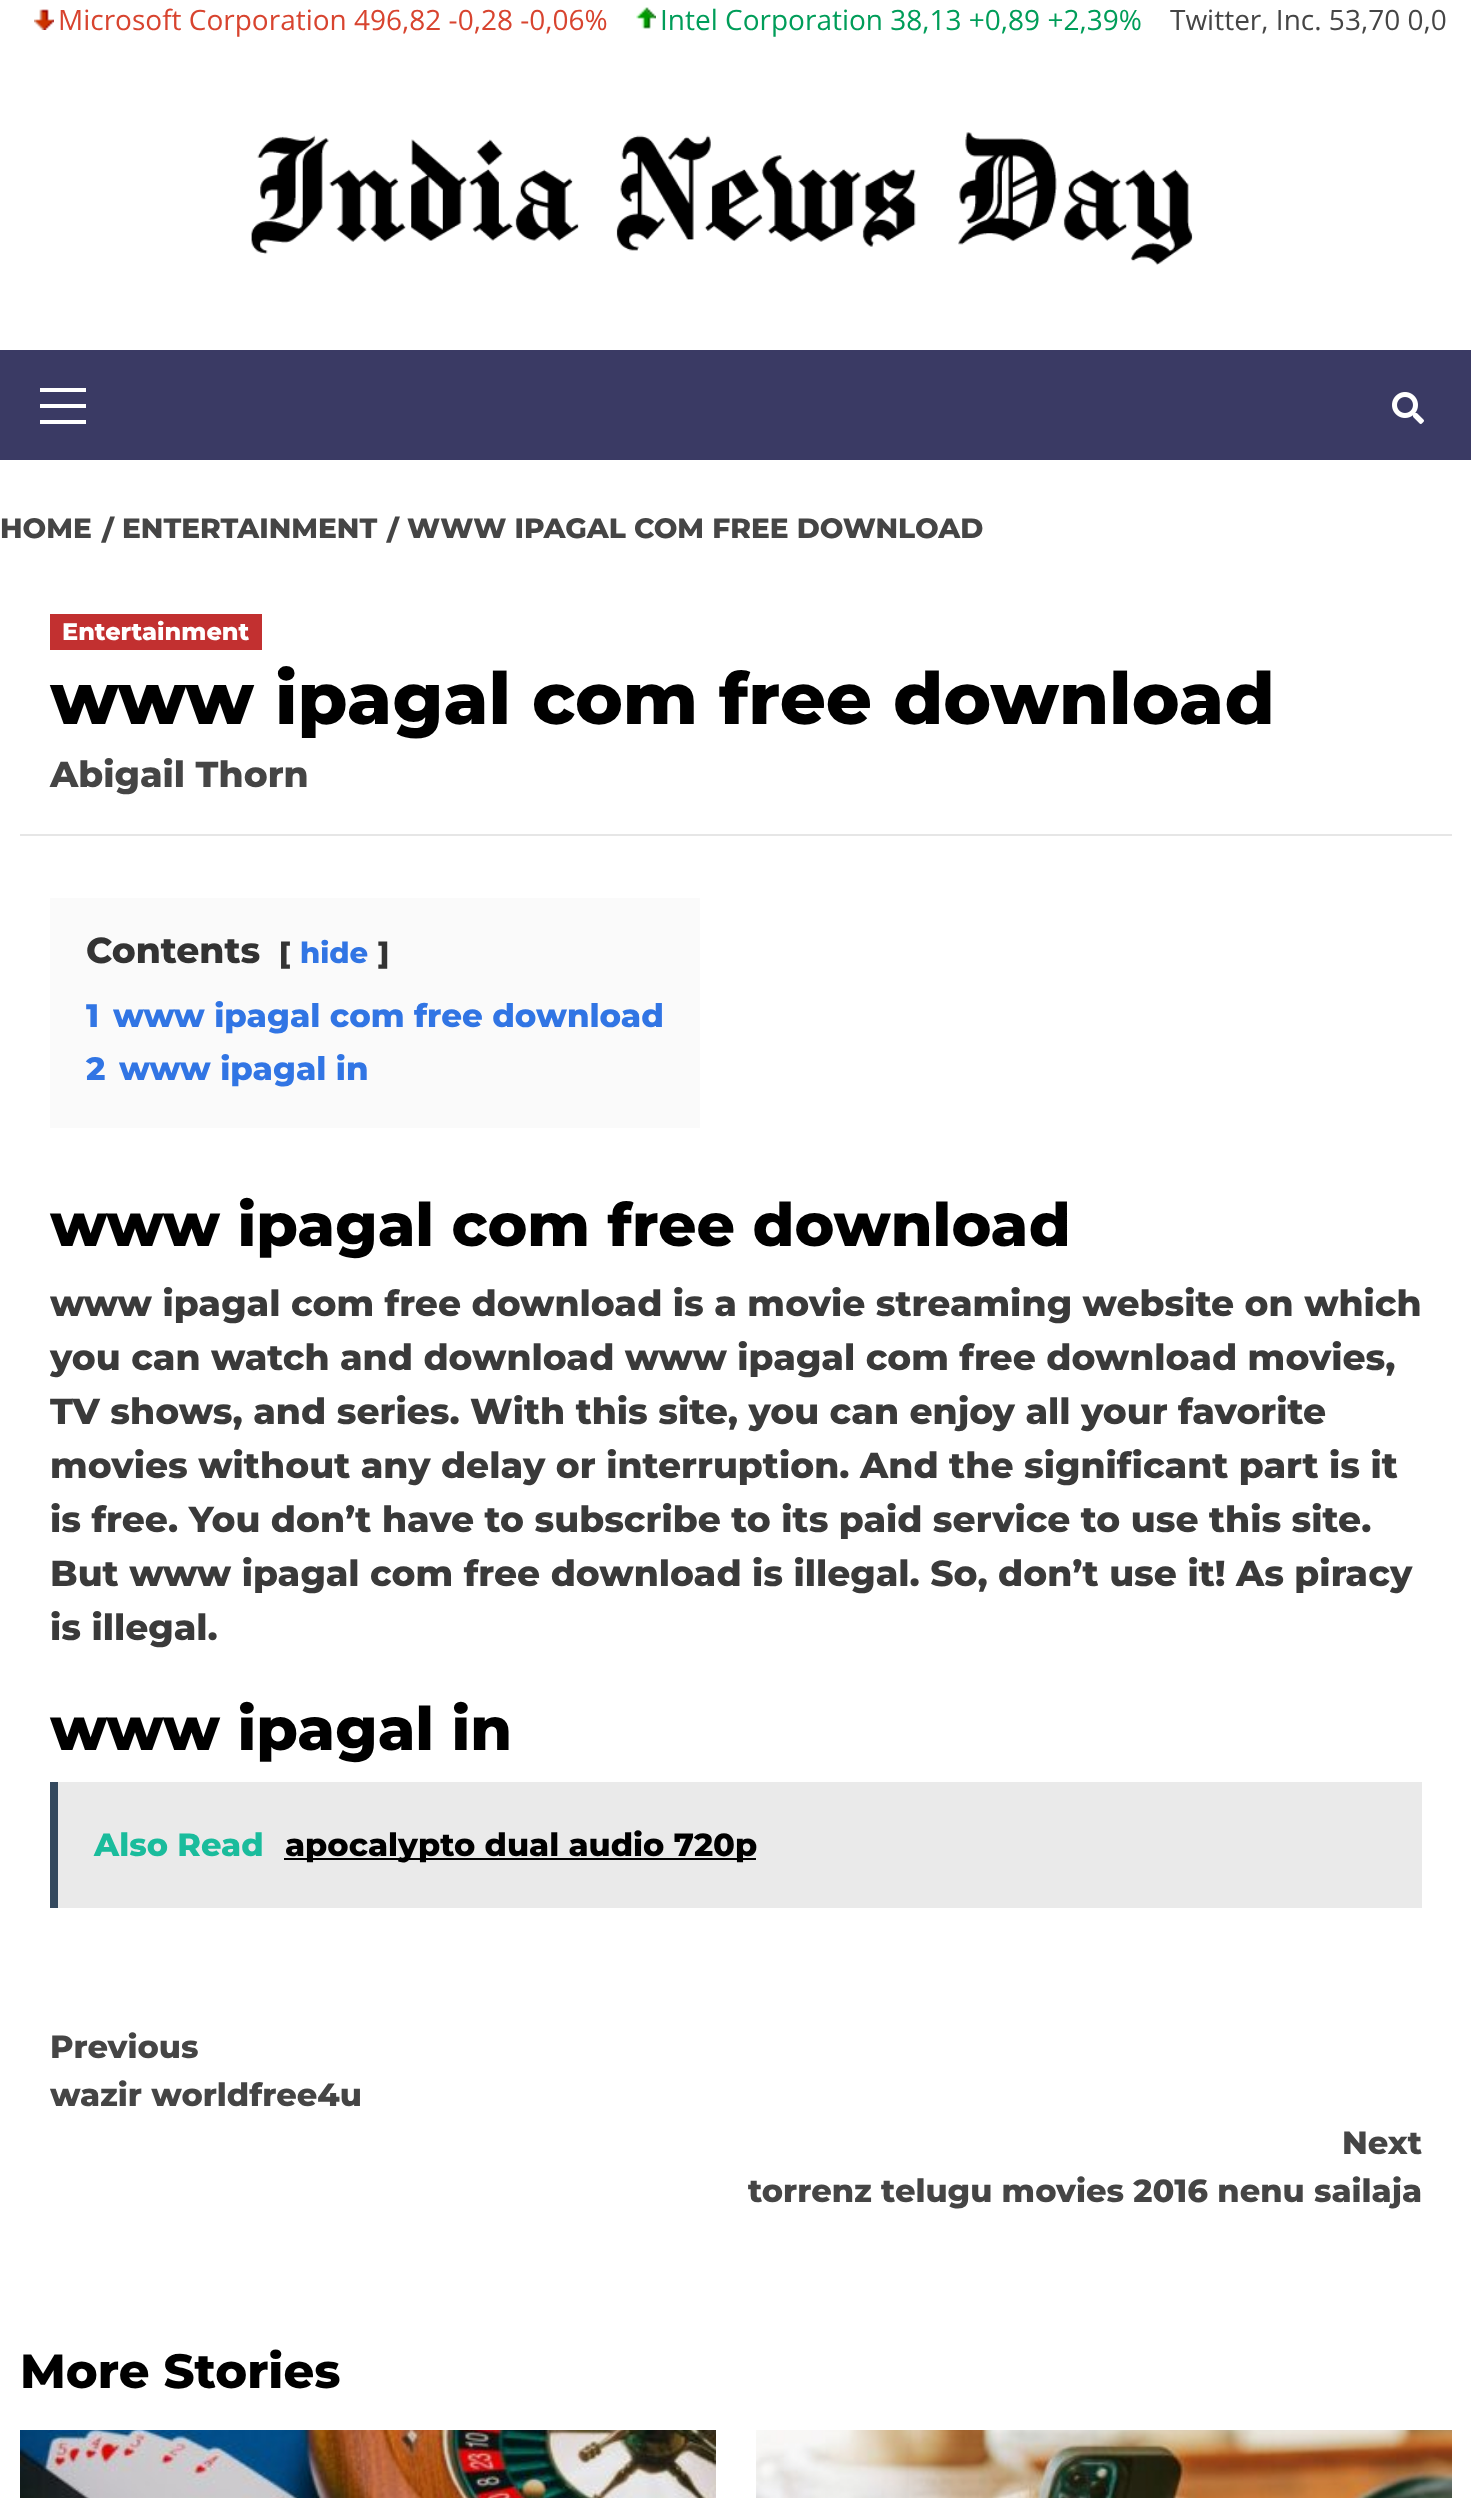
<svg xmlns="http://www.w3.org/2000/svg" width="1471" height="2498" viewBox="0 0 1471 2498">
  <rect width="100%" height="100%" fill="#ffffff"/>
  <image x="34" y="9" width="20" height="21" href="img1.png"/>
  <text x="58" y="30" font-family="Open Sans" font-size="28" fill="#d8442f">Microsoft Corporation 496,82 -0,28 -0,06%</text>
  <image x="636" y="7" width="20" height="22" href="img2.png"/>
  <text x="660" y="30" font-family="Open Sans" font-size="28" fill="#009d59">Intel Corporation 38,13 +0,89 +2,39%</text>
  <text x="1170" y="30" font-family="Open Sans" font-size="28" fill="#454545">Twitter, Inc. 53,70 0,0</text>
  <image x="251" y="132" width="942" height="133" href="img3.png"/>
  <rect x="0" y="350" width="1471" height="110" fill="#3a3a64"/>
  <rect x="40" y="404" width="46" height="4" fill="#ffffff"/>
  <rect x="40" y="388" width="46" height="4" fill="#ffffff"/>
  <rect x="40" y="420" width="46" height="4" fill="#ffffff"/>
  <image x="1392" y="392" width="32" height="32" href="img4.png"/>
  <text x="0" y="538" font-family="Montserrat" font-size="28" font-weight="100" fill="#454545">HOME</text>
  <text x="102" y="540" font-family="Montserrat" font-size="28" font-weight="100" fill="#454545">/</text>
  <text x="122" y="538" font-family="Montserrat" font-size="28" font-weight="100" fill="#454545">ENTERTAINMENT</text>
  <text x="387" y="540" font-family="Montserrat" font-size="28" font-weight="100" fill="#454545">/</text>
  <text x="407" y="538" font-family="Montserrat" font-size="28" font-weight="100" fill="#454545">WWW IPAGAL COM FREE DOWNLOAD</text>
  <rect x="20" y="834" width="1432" height="2" fill="#e6e6e6"/>
  <rect x="50" y="614" width="212" height="36" fill="#c23030"/>
  <text x="62" y="640" font-family="Montserrat" font-size="24" font-weight="100" fill="#ffffff">Entertainment</text>
  <text x="50" y="724" font-family="Montserrat" font-size="72" font-weight="100" fill="#000000">www ipagal com free download</text>
  <text x="50" y="787" font-family="Montserrat" font-size="36" font-weight="100" fill="#454545">Abigail Thorn</text>
  <rect x="50" y="898" width="650" height="230" fill="#fafafa"/>
  <text x="86" y="963" font-family="Montserrat" font-size="36" font-weight="100" fill="#333333">Contents</text>
  <text x="279" y="963" font-family="Montserrat" font-size="29" font-weight="100" fill="#333333">[</text>
  <text x="300" y="963" font-family="Montserrat" font-size="29" font-weight="100" fill="#3175e4">hide</text>
  <text x="378" y="963" font-family="Montserrat" font-size="29" font-weight="100" fill="#333333">]</text>
  <text x="86" y="1027" font-family="Montserrat" font-size="32.4" font-weight="100" fill="#3175e4">1</text>
  <text x="113" y="1027" font-family="Montserrat" font-size="32.4" font-weight="100" fill="#3175e4">www ipagal com free download</text>
  <text x="86" y="1080" font-family="Montserrat" font-size="32.4" font-weight="100" fill="#3175e4">2</text>
  <text x="119" y="1080" font-family="Montserrat" font-size="32.4" font-weight="100" fill="#3175e4">www ipagal in</text>
  <text x="50" y="1246" font-family="Montserrat" font-size="60" font-weight="100" fill="#000000">www ipagal com free download</text>
  <text x="50" y="1316" font-family="Montserrat" font-size="36" font-weight="100" fill="#3a3a3a">www ipagal com free download is a movie streaming website on which</text>
  <text x="50" y="1370" font-family="Montserrat" font-size="36" font-weight="100" fill="#3a3a3a">you can watch and download www ipagal com free download movies,</text>
  <text x="50" y="1424" font-family="Montserrat" font-size="36" font-weight="100" fill="#3a3a3a">TV shows, and series. With this site, you can enjoy all your favorite</text>
  <text x="50" y="1478" font-family="Montserrat" font-size="36" font-weight="100" fill="#3a3a3a">movies without any delay or interruption. And the significant part is it</text>
  <text x="50" y="1532" font-family="Montserrat" font-size="36" font-weight="100" fill="#3a3a3a">is free. You don’t have to subscribe to its paid service to use this site.</text>
  <text x="50" y="1586" font-family="Montserrat" font-size="36" font-weight="100" fill="#3a3a3a">But www ipagal com free download is illegal. So, don’t use it! As piracy</text>
  <text x="50" y="1640" font-family="Montserrat" font-size="36" font-weight="100" fill="#3a3a3a">is illegal.</text>
  <text x="50" y="1750" font-family="Montserrat" font-size="60" font-weight="100" fill="#000000">www ipagal in</text>
  <rect x="58" y="1782" width="1364" height="126" fill="#eaeaea"/>
  <rect x="50" y="1782" width="8" height="126" fill="#34495e"/>
  <text x="94" y="1856" font-family="Montserrat" font-size="32" font-weight="100" fill="#1abc9c">Also Read</text>
  <rect x="284" y="1858" width="472" height="2" fill="#000000"/>
  <text x="285" y="1856" font-family="Montserrat" font-size="32" font-weight="100" fill="#000000">apocalypto dual audio 720p</text>
  <text x="50" y="2058" font-family="Montserrat" font-size="32" font-weight="100" fill="#454545">Previous</text>
  <text x="50" y="2106" font-family="Montserrat" font-size="32" font-weight="100" fill="#454545">wazir worldfree4u</text>
  <text x="1342" y="2154" font-family="Montserrat" font-size="32" font-weight="100" fill="#454545">Next</text>
  <text x="748" y="2202" font-family="Montserrat" font-size="32" font-weight="100" fill="#454545">torrenz telugu movies 2016 nenu sailaja</text>
  <text x="20" y="2388" font-family="Montserrat" font-size="48" font-weight="100" fill="#000000">More Stories</text>
  <image x="20" y="2430" width="696" height="68" href="img5.png"/>
  <image x="756" y="2430" width="696" height="68" href="img6.png"/>
</svg>
